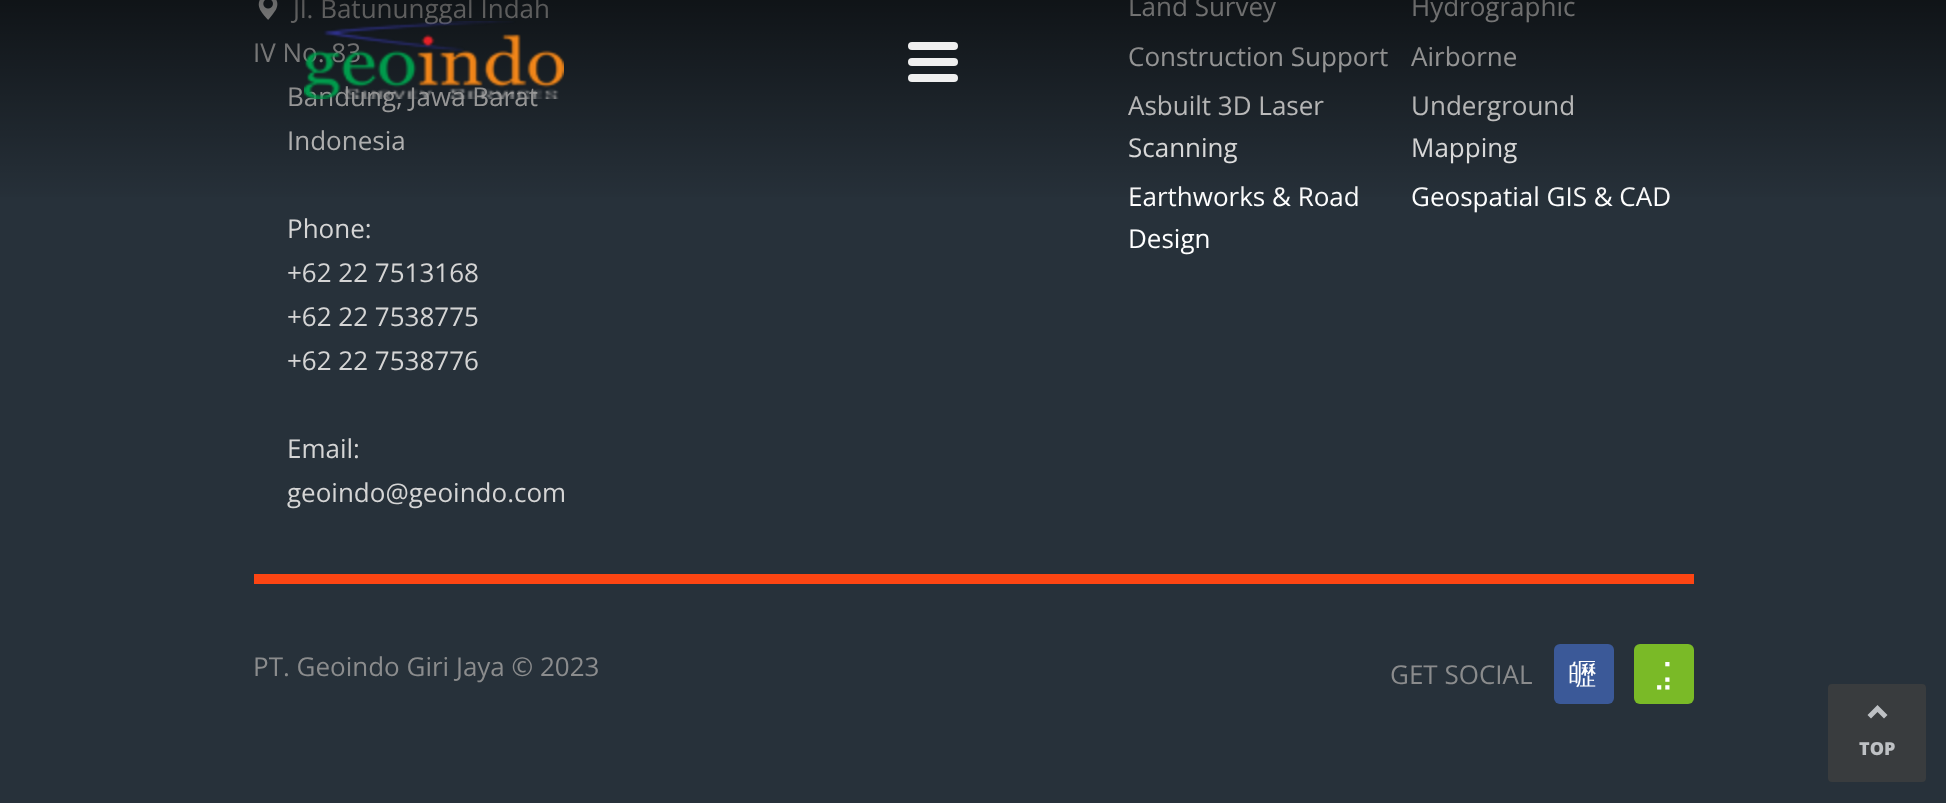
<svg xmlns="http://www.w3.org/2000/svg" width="1946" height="803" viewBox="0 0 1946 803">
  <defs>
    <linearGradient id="g1" gradientUnits="userSpaceOnUse" x1="973" y1="0" x2="973" y2="204"><stop offset="0" stop-color="#000000" stop-opacity="0.6"/><stop offset="1" stop-color="#000000" stop-opacity="0"/></linearGradient>
  </defs>
  <rect width="100%" height="100%" fill="#27313a"/>
  <image x="258" y="0" width="20" height="20" href="img2.png"/>
  <text x="293" y="18" font-family="Open Sans" font-size="26" fill="#d5d5d5">Jl. Batununggal Indah</text>
  <text x="253" y="62" font-family="Open Sans" font-size="26" fill="#d5d5d5">IV No. 83</text>
  <text x="287" y="106" font-family="Open Sans" font-size="26" fill="#d5d5d5">Bandung, Jawa Barat</text>
  <text x="287" y="150" font-family="Open Sans" font-size="26" fill="#d5d5d5">Indonesia</text>
  <text x="1128" y="16" font-family="Open Sans" font-size="26" fill="#ffffff">Land Survey</text>
  <text x="1411" y="16" font-family="Open Sans" font-size="26" fill="#ffffff">Hydrographic</text>
  <text x="1128" y="66" font-family="Open Sans" font-size="26" fill="#ffffff">Construction Support</text>
  <text x="1411" y="66" font-family="Open Sans" font-size="26" fill="#ffffff">Airborne</text>
  <text x="1128" y="115" font-family="Open Sans" font-size="26" fill="#ffffff">Asbuilt 3D Laser</text>
  <text x="1128" y="157" font-family="Open Sans" font-size="26" fill="#ffffff">Scanning</text>
  <text x="1411" y="115" font-family="Open Sans" font-size="26" fill="#ffffff">Underground</text>
  <text x="1411" y="157" font-family="Open Sans" font-size="26" fill="#ffffff">Mapping</text>
  <text x="1128" y="206" font-family="Open Sans" font-size="26" fill="#ffffff">Earthworks &amp; Road</text>
  <text x="1411" y="206" font-family="Open Sans" font-size="26" fill="#ffffff">Geospatial GIS &amp; CAD</text>
  <rect x="0" y="0" width="1946" height="197" fill="url(#g1)"/>
  <image x="304" y="21" width="260" height="78" href="img1.png"/>
  <rect x="908" y="74" width="50" height="8" rx="4" fill="#efefef"/>
  <rect x="908" y="58" width="50" height="8" rx="4" fill="#efefef"/>
  <rect x="908" y="42" width="50" height="8" rx="4" fill="#efefef"/>
  <text x="287" y="238" font-family="Open Sans" font-size="26" fill="#d5d5d5">Phone:</text>
  <text x="287" y="282" font-family="Open Sans" font-size="26" fill="#d5d5d5">+62 22 7513168</text>
  <text x="287" y="326" font-family="Open Sans" font-size="26" fill="#d5d5d5">+62 22 7538775</text>
  <text x="287" y="370" font-family="Open Sans" font-size="26" fill="#d5d5d5">+62 22 7538776</text>
  <text x="287" y="458" font-family="Open Sans" font-size="26" fill="#d5d5d5">Email:</text>
  <text x="287" y="502" font-family="Open Sans" font-size="26" fill="#d5d5d5">geoindo@geoindo.com</text>
  <text x="1128" y="248" font-family="Open Sans" font-size="26" fill="#ffffff">Design</text>
  <rect x="254" y="574" width="1440" height="10" fill="#fc4513"/>
  <text x="253" y="676" font-family="Open Sans" font-size="26" fill="#8b8c8d">PT. Geoindo Giri Jaya © 2023</text>
  <text x="1390" y="684" font-family="Open Sans" font-size="26" fill="#8b8c8d">GET SOCIAL</text>
  <rect x="1554" y="644" width="60" height="60" rx="6" fill="#3b5998"/>
  <text x="1569" y="684" font-family="WenQuanYi Zen Hei" font-size="28" font-weight="500" fill="#ffffff">㿨</text>
  <rect x="1634" y="644" width="60" height="60" rx="6" fill="#7aba27"/>
  <text x="1653" y="684" font-family="DejaVu Sans" font-size="28" fill="#ffffff">⣨</text>
  <rect x="1828" y="684" width="98" height="98" rx="4" fill="#393c3e"/>
  <path d="M1877.5 705L1887.5 715L1884 718.5L1877.5 712L1871 718.5L1867.5 715Z" fill="#bec1c4"/>
  <text x="1859" y="755" font-family="Open Sans" font-size="18" font-weight="800" fill="#bec1c4">TOP</text>
</svg>
